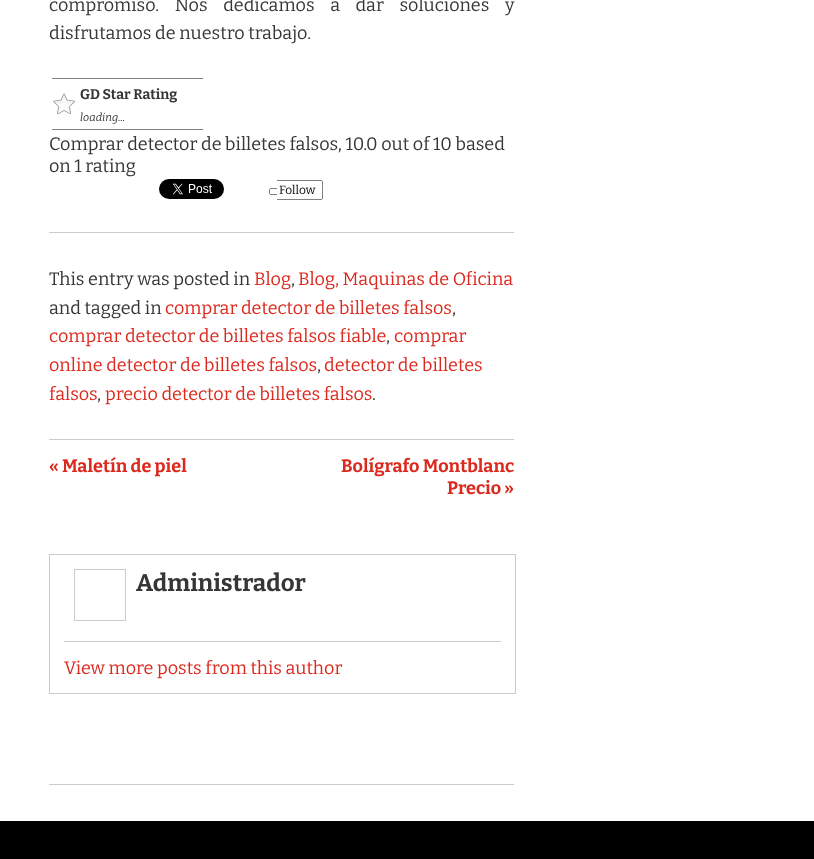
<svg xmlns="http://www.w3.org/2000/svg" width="814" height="859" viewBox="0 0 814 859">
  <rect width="100%" height="100%" fill="#ffffff"/>
  <text x="49" y="11" word-spacing="12" font-family="Bitter" font-size="18" fill="#363636">compromiso. Nos dedicamos a dar soluciones y</text>
  <text x="49" y="39" font-family="Bitter" font-size="18" fill="#363636">disfrutamos de nuestro trabajo.</text>
  <image x="53" y="93" width="23" height="21" href="img1.png"/>
  <rect x="52" y="78" width="151" height="1" fill="#808080"/>
  <rect x="52" y="129" width="151" height="1" fill="#808080"/>
  <text x="80" y="99" font-family="Bitter" font-size="14" font-weight="bold" fill="#363636">GD Star Rating</text>
  <text x="80" y="121" font-family="Bitter" font-size="11" font-weight="100" font-style="italic" fill="#363636">loading...</text>
  <text x="49" y="150" font-family="Bitter" font-size="18" fill="#363636">Comprar detector de billetes falsos, 10.0 out of 10 based</text>
  <text x="49" y="172" font-family="Bitter" font-size="18" fill="#363636">on 1 rating</text>
  <image x="159" y="179" width="65" height="20" href="img2.png"/>
  <text x="279" y="194" font-family="Bitter" font-size="12" fill="#000000">Follow</text>
  <rect x="270" y="188" width="7" height="1" fill="#808080"/>
  <rect x="270" y="194" width="7" height="1" fill="#808080"/>
  <rect x="269" y="189" width="1" height="5" fill="#808080"/>
  <rect x="277" y="180" width="45" height="1" fill="#808080"/>
  <rect x="322" y="181" width="1" height="18" fill="#808080"/>
  <rect x="277" y="199" width="45" height="1" fill="#808080"/>
  <rect x="49" y="232" width="465" height="1" fill="#cccccc"/>
  <text x="49" y="285" font-family="Bitter" font-size="18" fill="#363636">This entry was posted in</text>
  <text x="254" y="285" font-family="Bitter" font-size="18" fill="#dc291e">Blog</text>
  <text x="291" y="285" font-family="Bitter" font-size="18" fill="#363636">,</text>
  <text x="298" y="285" font-family="Bitter" font-size="18" fill="#dc291e">Blog, Maquinas de Oficina</text>
  <text x="49" y="314" font-family="Bitter" font-size="18" fill="#363636">and tagged in</text>
  <text x="165" y="314" font-family="Bitter" font-size="18" fill="#dc291e">comprar detector de billetes falsos</text>
  <text x="452" y="314" font-family="Bitter" font-size="18" fill="#363636">,</text>
  <text x="49" y="342" font-family="Bitter" font-size="18" fill="#dc291e">comprar detector de billetes falsos fiable</text>
  <text x="386" y="342" font-family="Bitter" font-size="18" fill="#363636">,</text>
  <text x="394" y="342" font-family="Bitter" font-size="18" fill="#dc291e">comprar</text>
  <text x="49" y="371" font-family="Bitter" font-size="18" fill="#dc291e">online detector de billetes falsos</text>
  <text x="317" y="371" font-family="Bitter" font-size="18" fill="#363636">,</text>
  <text x="324" y="371" font-family="Bitter" font-size="18" fill="#dc291e">detector de billetes</text>
  <text x="49" y="400" font-family="Bitter" font-size="18" fill="#dc291e">falsos</text>
  <text x="97" y="400" font-family="Bitter" font-size="18" fill="#363636">,</text>
  <text x="105" y="400" font-family="Bitter" font-size="18" fill="#dc291e">precio detector de billetes falsos</text>
  <text x="372" y="400" font-family="Bitter" font-size="18" fill="#363636">.</text>
  <rect x="49" y="439" width="465" height="1" fill="#cccccc"/>
  <text x="49" y="472" font-family="Bitter" font-size="18" font-weight="bold" fill="#dc291e">« Maletín de piel</text>
  <text x="341" y="472" font-family="Bitter" font-size="18" font-weight="bold" fill="#dc291e">Bolígrafo Montblanc</text>
  <text x="447" y="494" font-family="Bitter" font-size="18" font-weight="bold" fill="#dc291e">Precio »</text>
  <rect x="49.5" y="554.5" width="466" height="139" fill="none" stroke="#cccccc"/>
  <rect x="64" y="641" width="437" height="1" fill="#cccccc"/>
  <rect x="74.5" y="569.5" width="51" height="51" fill="none" stroke="#cccccc"/>
  <text x="136" y="591" font-family="Bitter" font-size="24" font-weight="bold" fill="#363636">Administrador</text>
  <text x="64" y="674" font-family="Bitter" font-size="18" fill="#dc291e">View more posts from this author</text>
  <rect x="49" y="784" width="465" height="1" fill="#cccccc"/>
  <rect x="0" y="821" width="814" height="38" fill="#000000"/>
</svg>
